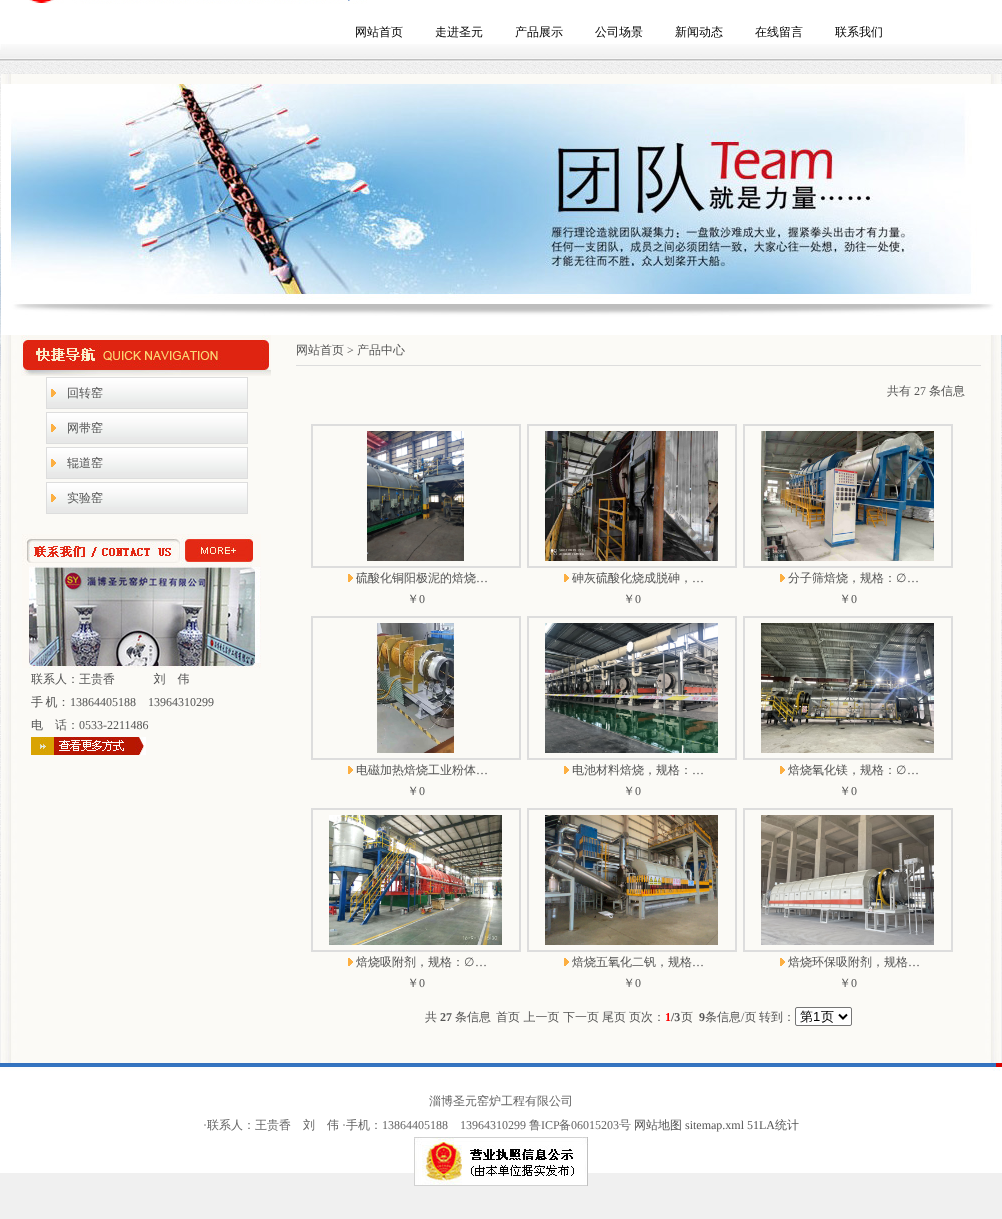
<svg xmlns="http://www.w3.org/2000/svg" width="1002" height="1219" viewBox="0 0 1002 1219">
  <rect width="100%" height="100%" fill="#ffffff"/>
  <image x="0" y="44" width="1002" height="1175" href="img1.png"/>
  <image x="0" y="50" width="1002" height="24" href="img2.png"/>
  <image x="29" y="0" width="338" height="4" href="img3.png"/>
  <text x="355" y="36" font-family="WenQuanYi Zen Hei" font-size="12" font-weight="500" fill="#000000">网站首页</text>
  <text x="435" y="36" font-family="WenQuanYi Zen Hei" font-size="12" font-weight="500" fill="#000000">走进圣元</text>
  <text x="515" y="36" font-family="WenQuanYi Zen Hei" font-size="12" font-weight="500" fill="#000000">产品展示</text>
  <text x="595" y="36" font-family="WenQuanYi Zen Hei" font-size="12" font-weight="500" fill="#000000">公司场景</text>
  <text x="675" y="36" font-family="WenQuanYi Zen Hei" font-size="12" font-weight="500" fill="#000000">新闻动态</text>
  <text x="755" y="36" font-family="WenQuanYi Zen Hei" font-size="12" font-weight="500" fill="#000000">在线留言</text>
  <text x="835" y="36" font-family="WenQuanYi Zen Hei" font-size="12" font-weight="500" fill="#000000">联系我们</text>
  <image x="1" y="74" width="1000" height="989" href="img4.png"/>
  <image x="1" y="84" width="1001" height="251" href="img5.png"/>
  <image x="21" y="335" width="250" height="41" href="img6.png"/>
  <image x="47" y="378" width="200" height="30" href="img7.png"/>
  <rect x="46.5" y="377.5" width="201" height="31" fill="none" stroke="#dddddd"/>
  <image x="51" y="389" width="5" height="8" href="img8.png"/>
  <text x="67" y="397" font-family="WenQuanYi Zen Hei" font-size="12" font-weight="500" fill="#555555">回转窑</text>
  <image x="47" y="413" width="200" height="30" href="img7.png"/>
  <rect x="46.5" y="412.5" width="201" height="31" fill="none" stroke="#dddddd"/>
  <image x="51" y="424" width="5" height="8" href="img8.png"/>
  <text x="67" y="432" font-family="WenQuanYi Zen Hei" font-size="12" font-weight="500" fill="#555555">网带窑</text>
  <image x="47" y="448" width="200" height="30" href="img7.png"/>
  <rect x="46.5" y="447.5" width="201" height="31" fill="none" stroke="#dddddd"/>
  <image x="51" y="459" width="5" height="8" href="img8.png"/>
  <text x="67" y="467" font-family="WenQuanYi Zen Hei" font-size="12" font-weight="500" fill="#555555">辊道窑</text>
  <image x="47" y="483" width="200" height="30" href="img7.png"/>
  <rect x="46.5" y="482.5" width="201" height="31" fill="none" stroke="#dddddd"/>
  <image x="51" y="494" width="5" height="8" href="img8.png"/>
  <text x="67" y="502" font-family="WenQuanYi Zen Hei" font-size="12" font-weight="500" fill="#555555">实验窑</text>
  <image x="22" y="534" width="239" height="134" href="img9.png"/>
  <text x="31" y="683" word-spacing="-1" font-family="WenQuanYi Zen Hei" font-size="12" font-weight="500" fill="#555555">联系人：王贵香　　　 刘　伟</text>
  <text x="31" y="706" word-spacing="-1" font-family="WenQuanYi Zen Hei" font-size="12" font-weight="500" fill="#555555">手 机：</text>
  <text x="70" y="706" font-family="Liberation Serif" font-size="12" fill="#555555">13864405188</text>
  <text x="148" y="706" font-family="Liberation Serif" font-size="12" fill="#555555">13964310299</text>
  <text x="31" y="729" font-family="WenQuanYi Zen Hei" font-size="12" font-weight="500" fill="#555555">电　话：</text>
  <text x="79" y="729" font-family="Liberation Serif" font-size="12" fill="#555555">0533-2211486</text>
  <image x="31" y="737" width="115" height="18" href="img10.png"/>
  <rect x="296" y="365" width="685" height="1" fill="#dddddd"/>
  <text x="296" y="354" font-family="WenQuanYi Zen Hei" font-size="12" font-weight="500" fill="#555555">网站首页</text>
  <text x="347" y="354" font-family="Liberation Serif" font-size="12" fill="#555555">&gt;</text>
  <text x="357" y="354" font-family="WenQuanYi Zen Hei" font-size="12" font-weight="500" fill="#555555">产品中心</text>
  <text x="887" y="395" font-family="WenQuanYi Zen Hei" font-size="12" font-weight="500" fill="#555555">共有</text>
  <text x="914" y="395" font-family="Liberation Serif" font-size="12" fill="#555555">27</text>
  <text x="929" y="395" font-family="WenQuanYi Zen Hei" font-size="12" font-weight="500" fill="#555555">条信息</text>
  <rect x="312" y="425" width="208" height="142" fill="none" stroke="#dddddd" stroke-width="2"/>
  <image x="367" y="431" width="97" height="130" href="img11.png"/>
  <image x="348" y="574" width="5" height="8" href="img12.png"/>
  <text x="356" y="582" font-family="WenQuanYi Zen Hei" font-size="12" font-weight="500" fill="#555555">硫酸化铜阳极泥的焙烧</text>
  <text x="476" y="582" font-family="Liberation Serif" font-size="12" fill="#555555">…</text>
  <text x="407" y="603" font-family="WenQuanYi Zen Hei" font-size="12" font-weight="500" fill="#555555">￥</text>
  <text x="419" y="603" font-family="Liberation Serif" font-size="12" fill="#555555">0</text>
  <rect x="528" y="425" width="208" height="142" fill="none" stroke="#dddddd" stroke-width="2"/>
  <image x="545" y="431" width="173" height="130" href="img13.png"/>
  <image x="564" y="574" width="5" height="8" href="img12.png"/>
  <text x="572" y="582" font-family="WenQuanYi Zen Hei" font-size="12" font-weight="500" fill="#555555">砷灰硫酸化烧成脱砷，</text>
  <text x="692" y="582" font-family="Liberation Serif" font-size="12" fill="#555555">…</text>
  <text x="623" y="603" font-family="WenQuanYi Zen Hei" font-size="12" font-weight="500" fill="#555555">￥</text>
  <text x="635" y="603" font-family="Liberation Serif" font-size="12" fill="#555555">0</text>
  <rect x="744" y="425" width="208" height="142" fill="none" stroke="#dddddd" stroke-width="2"/>
  <image x="761" y="431" width="173" height="130" href="img14.png"/>
  <image x="780" y="574" width="5" height="8" href="img12.png"/>
  <text x="788" y="582" font-family="WenQuanYi Zen Hei" font-size="12" font-weight="500" fill="#555555">分子筛焙烧，规格：</text>
  <text x="896" y="582" font-family="DejaVu Sans" font-size="12" fill="#555555">∅</text>
  <text x="907" y="582" font-family="Liberation Serif" font-size="12" fill="#555555">…</text>
  <text x="839" y="603" font-family="WenQuanYi Zen Hei" font-size="12" font-weight="500" fill="#555555">￥</text>
  <text x="851" y="603" font-family="Liberation Serif" font-size="12" fill="#555555">0</text>
  <rect x="312" y="617" width="208" height="142" fill="none" stroke="#dddddd" stroke-width="2"/>
  <image x="377" y="623" width="77" height="130" href="img15.png"/>
  <image x="348" y="766" width="5" height="8" href="img12.png"/>
  <text x="356" y="774" font-family="WenQuanYi Zen Hei" font-size="12" font-weight="500" fill="#555555">电磁加热焙烧工业粉体</text>
  <text x="476" y="774" font-family="Liberation Serif" font-size="12" fill="#555555">…</text>
  <text x="407" y="795" font-family="WenQuanYi Zen Hei" font-size="12" font-weight="500" fill="#555555">￥</text>
  <text x="419" y="795" font-family="Liberation Serif" font-size="12" fill="#555555">0</text>
  <rect x="528" y="617" width="208" height="142" fill="none" stroke="#dddddd" stroke-width="2"/>
  <image x="545" y="623" width="173" height="130" href="img16.png"/>
  <image x="564" y="766" width="5" height="8" href="img12.png"/>
  <text x="572" y="774" font-family="WenQuanYi Zen Hei" font-size="12" font-weight="500" fill="#555555">电池材料焙烧，规格：</text>
  <text x="692" y="774" font-family="Liberation Serif" font-size="12" fill="#555555">…</text>
  <text x="623" y="795" font-family="WenQuanYi Zen Hei" font-size="12" font-weight="500" fill="#555555">￥</text>
  <text x="635" y="795" font-family="Liberation Serif" font-size="12" fill="#555555">0</text>
  <rect x="744" y="617" width="208" height="142" fill="none" stroke="#dddddd" stroke-width="2"/>
  <image x="761" y="623" width="173" height="130" href="img17.png"/>
  <image x="780" y="766" width="5" height="8" href="img12.png"/>
  <text x="788" y="774" font-family="WenQuanYi Zen Hei" font-size="12" font-weight="500" fill="#555555">焙烧氧化镁，规格：</text>
  <text x="896" y="774" font-family="DejaVu Sans" font-size="12" fill="#555555">∅</text>
  <text x="907" y="774" font-family="Liberation Serif" font-size="12" fill="#555555">…</text>
  <text x="839" y="795" font-family="WenQuanYi Zen Hei" font-size="12" font-weight="500" fill="#555555">￥</text>
  <text x="851" y="795" font-family="Liberation Serif" font-size="12" fill="#555555">0</text>
  <rect x="312" y="809" width="208" height="142" fill="none" stroke="#dddddd" stroke-width="2"/>
  <image x="329" y="815" width="173" height="130" href="img18.png"/>
  <image x="348" y="958" width="5" height="8" href="img12.png"/>
  <text x="356" y="966" font-family="WenQuanYi Zen Hei" font-size="12" font-weight="500" fill="#555555">焙烧吸附剂，规格：</text>
  <text x="464" y="966" font-family="DejaVu Sans" font-size="12" fill="#555555">∅</text>
  <text x="475" y="966" font-family="Liberation Serif" font-size="12" fill="#555555">…</text>
  <text x="407" y="987" font-family="WenQuanYi Zen Hei" font-size="12" font-weight="500" fill="#555555">￥</text>
  <text x="419" y="987" font-family="Liberation Serif" font-size="12" fill="#555555">0</text>
  <rect x="528" y="809" width="208" height="142" fill="none" stroke="#dddddd" stroke-width="2"/>
  <image x="545" y="815" width="173" height="130" href="img19.png"/>
  <image x="564" y="958" width="5" height="8" href="img12.png"/>
  <text x="572" y="966" font-family="WenQuanYi Zen Hei" font-size="12" font-weight="500" fill="#555555">焙烧五氧化二钒，规格</text>
  <text x="692" y="966" font-family="Liberation Serif" font-size="12" fill="#555555">…</text>
  <text x="623" y="987" font-family="WenQuanYi Zen Hei" font-size="12" font-weight="500" fill="#555555">￥</text>
  <text x="635" y="987" font-family="Liberation Serif" font-size="12" fill="#555555">0</text>
  <rect x="744" y="809" width="208" height="142" fill="none" stroke="#dddddd" stroke-width="2"/>
  <image x="761" y="815" width="173" height="130" href="img20.png"/>
  <image x="780" y="958" width="5" height="8" href="img12.png"/>
  <text x="788" y="966" font-family="WenQuanYi Zen Hei" font-size="12" font-weight="500" fill="#555555">焙烧环保吸附剂，规格</text>
  <text x="908" y="966" font-family="Liberation Serif" font-size="12" fill="#555555">…</text>
  <text x="839" y="987" font-family="WenQuanYi Zen Hei" font-size="12" font-weight="500" fill="#555555">￥</text>
  <text x="851" y="987" font-family="Liberation Serif" font-size="12" fill="#555555">0</text>
  <text x="425" y="1021" font-family="WenQuanYi Zen Hei" font-size="12" font-weight="500" fill="#555555">共</text>
  <text x="440" y="1021" font-family="Liberation Serif" font-size="12" font-weight="bold" fill="#555555">27</text>
  <text x="455" y="1021" font-family="WenQuanYi Zen Hei" font-size="12" font-weight="500" fill="#555555">条信息</text>
  <text x="496" y="1021" font-family="WenQuanYi Zen Hei" font-size="12" font-weight="500" fill="#555555">首页 上一页</text>
  <text x="563" y="1021" font-family="WenQuanYi Zen Hei" font-size="12" font-weight="500" fill="#555555">下一页</text>
  <text x="602" y="1021" font-family="WenQuanYi Zen Hei" font-size="12" font-weight="500" fill="#555555">尾页</text>
  <text x="629" y="1021" font-family="WenQuanYi Zen Hei" font-size="12" font-weight="500" fill="#555555">页次：</text>
  <text x="665" y="1021" font-family="Liberation Serif" font-size="12" font-weight="bold" fill="#ff0000">1</text>
  <text x="671" y="1021" font-family="Liberation Serif" font-size="12" font-weight="bold" fill="#555555">/3</text>
  <text x="681" y="1021" font-family="WenQuanYi Zen Hei" font-size="12" font-weight="500" fill="#555555">页</text>
  <text x="699" y="1021" font-family="Liberation Serif" font-size="12" font-weight="bold" fill="#555555">9</text>
  <text x="705" y="1021" font-family="WenQuanYi Zen Hei" font-size="12" font-weight="500" fill="#555555">条信息 页</text>
  <text x="759" y="1021" font-family="WenQuanYi Zen Hei" font-size="12" font-weight="500" fill="#555555">转到：</text>
  <rect x="795.5" y="1007.5" width="56" height="18" rx="1.5" fill="#ffffff" stroke="#767676"/>
  <path d="M839 1014.5L843 1018.5L847 1014.5" fill="none" stroke="#000000" stroke-width="2"/>
  <text x="800" y="1021" font-family="WenQuanYi Zen Hei" font-size="13" font-weight="500" fill="#000000">第</text>
  <text x="813" y="1021" font-family="Liberation Sans" font-size="13" fill="#000000">1</text>
  <text x="821" y="1021" font-family="WenQuanYi Zen Hei" font-size="13" font-weight="500" fill="#000000">页</text>
  <text x="741" y="1021" font-family="Liberation Serif" font-size="12" fill="#555555">/</text>
  <image x="0" y="1063" width="1002" height="110" href="img21.png"/>
  <text x="429" y="1105" font-family="WenQuanYi Zen Hei" font-size="12" font-weight="500" fill="#666666">淄博圣元窑炉工程有限公司</text>
  <text x="203" y="1129" font-family="Liberation Serif" font-size="12" fill="#666666">·</text>
  <text x="207" y="1129" font-family="WenQuanYi Zen Hei" font-size="12" font-weight="500" fill="#666666">联系人：王贵香　刘　伟</text>
  <text x="342" y="1129" font-family="Liberation Serif" font-size="12" fill="#666666">·</text>
  <text x="346" y="1129" font-family="WenQuanYi Zen Hei" font-size="12" font-weight="500" fill="#666666">手机：</text>
  <text x="382" y="1129" font-family="Liberation Serif" font-size="12" fill="#666666">13864405188</text>
  <text x="460" y="1129" font-family="Liberation Serif" font-size="12" fill="#666666">13964310299</text>
  <text x="529" y="1129" font-family="WenQuanYi Zen Hei" font-size="12" font-weight="500" fill="#666666">鲁</text>
  <text x="541" y="1129" font-family="Liberation Serif" font-size="12" fill="#666666">ICP</text>
  <text x="559" y="1129" font-family="WenQuanYi Zen Hei" font-size="12" font-weight="500" fill="#666666">备</text>
  <text x="571" y="1129" font-family="Liberation Serif" font-size="12" fill="#666666">06015203</text>
  <text x="619" y="1129" font-family="WenQuanYi Zen Hei" font-size="12" font-weight="500" fill="#666666">号</text>
  <text x="634" y="1129" font-family="WenQuanYi Zen Hei" font-size="12" font-weight="500" fill="#555555">网站地图</text>
  <text x="685" y="1129" font-family="Liberation Serif" font-size="12" fill="#555555">sitemap.xml 51LA</text>
  <text x="775" y="1129" font-family="WenQuanYi Zen Hei" font-size="12" font-weight="500" fill="#555555">统计</text>
  <image x="414" y="1137" width="174" height="49" href="img22.png"/>
</svg>
